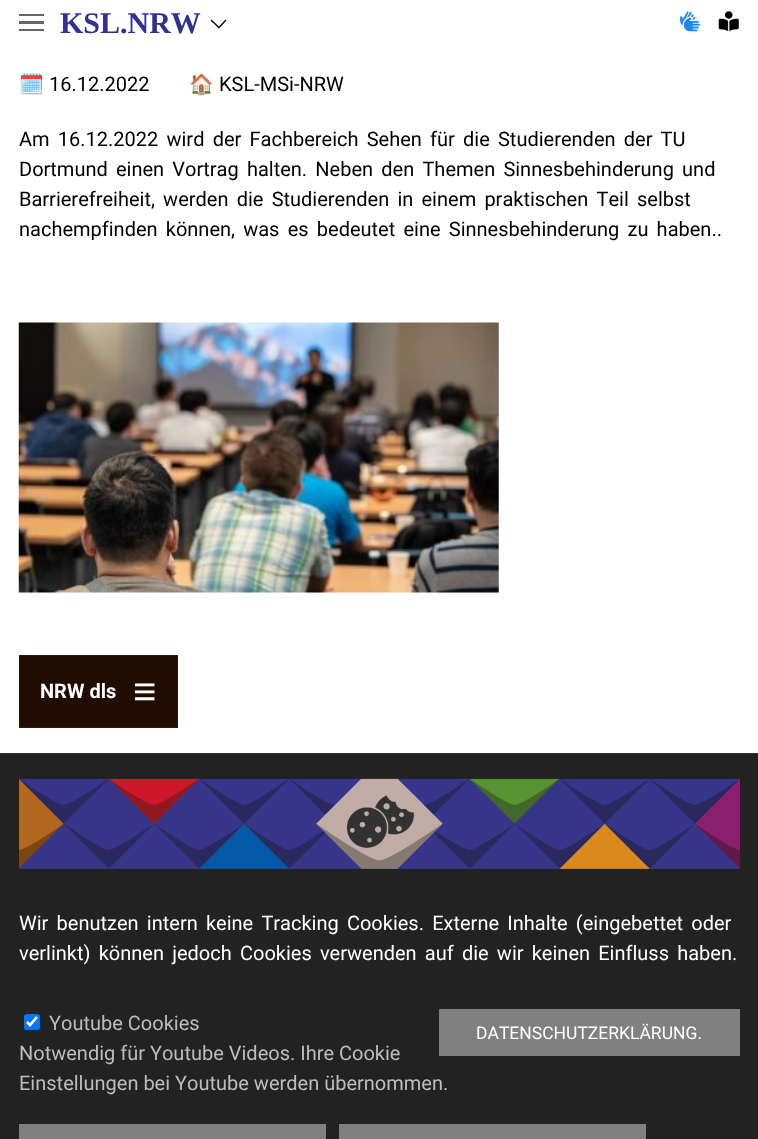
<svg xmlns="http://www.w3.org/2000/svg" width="758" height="1139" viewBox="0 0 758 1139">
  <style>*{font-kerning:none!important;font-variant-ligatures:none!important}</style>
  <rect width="100%" height="100%" fill="#ffffff"/>
  <rect x="19" y="21" width="25" height="3" fill="#666666"/>
  <rect x="19" y="14" width="25" height="2" fill="#666666"/>
  <rect x="19" y="29" width="25" height="2" fill="#666666"/>
  <text x="60" y="33" font-family="Liberation Serif" font-size="30" font-weight="bold" fill="#303097">KSL.NRW</text>
  <path d="M226 20L219 27.5L211 20" fill="none" stroke="#000000" stroke-width="1.3"/>
  <image x="680" y="11" width="21" height="21" href="img1.png"/>
  <image x="718" y="11" width="21" height="21" href="img2.png"/>
  <text x="19" y="91" font-family="Noto Color Emoji" font-size="20" fill="#000000">🗓️</text>
  <text x="49" y="91" font-family="Roboto" font-size="20" fill="#000000">16.12.2022</text>
  <text x="189" y="91" font-family="Noto Color Emoji" font-size="20" fill="#000000">🏠</text>
  <text x="219" y="91" font-family="Roboto" font-size="20" fill="#000000">KSL-MSi-NRW</text>
  <text x="19" y="146" word-spacing="3.25" font-family="Roboto" font-size="20" fill="#000000">Am 16.12.2022 wird der Fachbereich Sehen für die Studierenden der TU</text>
  <text x="19" y="176" word-spacing="3.25" font-family="Roboto" font-size="20" fill="#000000">Dortmund einen Vortrag halten. Neben den Themen Sinnesbehinderung und</text>
  <text x="19" y="206" word-spacing="3.25" font-family="Roboto" font-size="20" fill="#000000">Barrierefreiheit, werden die Studierenden in einem praktischen Teil selbst</text>
  <text x="19" y="236" word-spacing="3.25" font-family="Roboto" font-size="20" fill="#000000">nachempfinden können, was es bedeutet eine Sinnesbehinderung zu haben..</text>
  <image x="18" y="322" width="481" height="271" href="img3.png"/>
  <rect x="19.5" y="655.5" width="158" height="72" fill="#210c02" stroke="#381301"/>
  <text x="40" y="698" font-family="Roboto" font-size="20" font-weight="bold" fill="#ffffff">NRW dls</text>
  <text x="133" y="705" font-family="Liberation Sans" font-size="40" font-weight="bold" fill="#ffffff">≡</text>
  <rect x="0" y="753" width="758" height="1" fill="#323232"/>
  <rect x="0" y="754" width="758" height="385" fill="#222222"/>
  <image x="19" y="778" width="721" height="91" href="img4.png"/>
  <text x="19" y="930" word-spacing="3.25" font-family="Roboto" font-size="20" fill="#ffffff">Wir benutzen intern keine Tracking Cookies. Externe Inhalte (eingebettet oder</text>
  <text x="19" y="960" word-spacing="3.25" font-family="Roboto" font-size="20" fill="#ffffff">verlinkt) können jedoch Cookies verwenden auf die wir keinen Einfluss haben.</text>
  <rect x="439" y="1009" width="301" height="47" fill="#808080"/>
  <text x="476" y="1039" font-family="Roboto" font-size="17.5" fill="#ffffff">DATENSCHUTZERKLÄRUNG.</text>
  <rect x="24" y="1014" width="16" height="16" rx="2.5" fill="#0075ff"/>
  <path d="M27 1022L30 1025L37 1017" fill="none" stroke="#ffffff" stroke-width="2.6"/>
  <text x="49" y="1030" font-family="Roboto" font-size="20" fill="#bdbdbd">Youtube Cookies</text>
  <text x="19" y="1060" font-family="Roboto" font-size="20" fill="#bdbdbd">Notwendig für Youtube Videos. Ihre Cookie</text>
  <text x="19" y="1090" font-family="Roboto" font-size="20" fill="#bdbdbd">Einstellungen bei Youtube werden übernommen.</text>
  <rect x="19" y="1124" width="307" height="15" fill="#808080"/>
  <rect x="339" y="1124" width="307" height="15" fill="#808080"/>
</svg>
